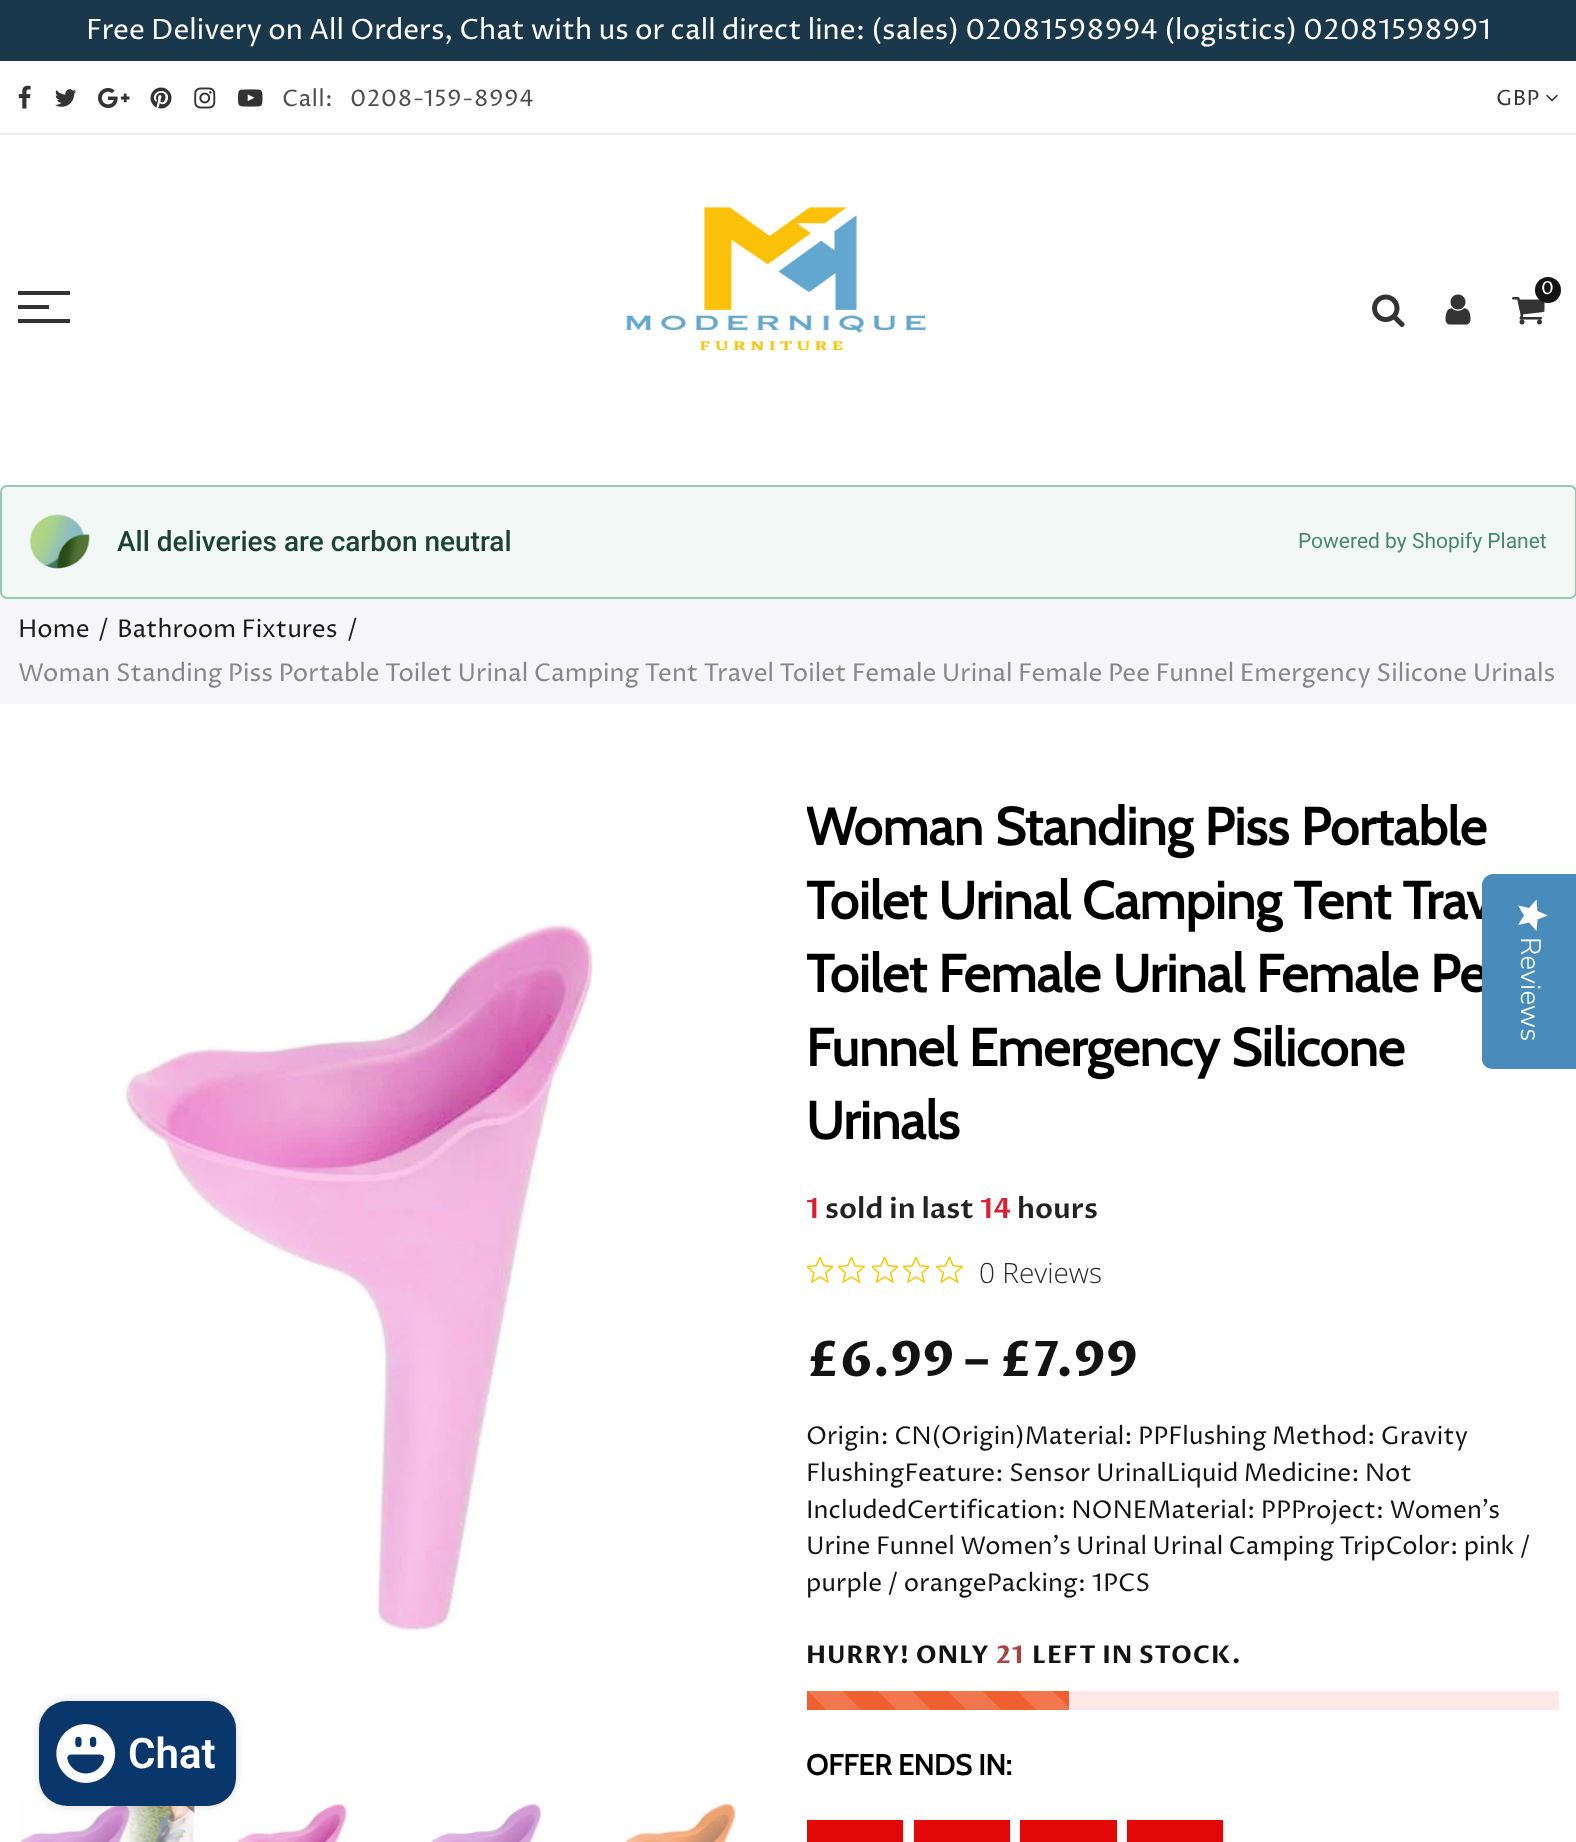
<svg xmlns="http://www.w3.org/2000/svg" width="1576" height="1842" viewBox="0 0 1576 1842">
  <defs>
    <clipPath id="clip1"><rect x="807" y="791" width="752" height="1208"/></clipPath>
    <linearGradient id="g1" gradientUnits="userSpaceOnUse" x1="807" y1="1761" x2="877" y2="1691"><stop offset="0.25" stop-color="#f2774f"/><stop offset="0.25" stop-color="#f05f30"/><stop offset="0.5" stop-color="#f05f30"/><stop offset="0.5" stop-color="#f2774f"/><stop offset="0.75" stop-color="#f2774f"/><stop offset="0.75" stop-color="#f05f30"/><stop offset="1" stop-color="#f05f30"/></linearGradient>
    <linearGradient id="g2" gradientUnits="userSpaceOnUse" x1="877" y1="1761" x2="947" y2="1691"><stop offset="0.25" stop-color="#f2774f"/><stop offset="0.25" stop-color="#f05f30"/><stop offset="0.5" stop-color="#f05f30"/><stop offset="0.5" stop-color="#f2774f"/><stop offset="0.75" stop-color="#f2774f"/><stop offset="0.75" stop-color="#f05f30"/><stop offset="1" stop-color="#f05f30"/></linearGradient>
    <linearGradient id="g3" gradientUnits="userSpaceOnUse" x1="947" y1="1761" x2="1017" y2="1691"><stop offset="0.25" stop-color="#f2774f"/><stop offset="0.25" stop-color="#f05f30"/><stop offset="0.5" stop-color="#f05f30"/><stop offset="0.5" stop-color="#f2774f"/><stop offset="0.75" stop-color="#f2774f"/><stop offset="0.75" stop-color="#f05f30"/><stop offset="1" stop-color="#f05f30"/></linearGradient>
    <linearGradient id="g4" gradientUnits="userSpaceOnUse" x1="1017" y1="1761" x2="1087" y2="1691"><stop offset="0.25" stop-color="#f2774f"/><stop offset="0.25" stop-color="#f05f30"/><stop offset="0.5" stop-color="#f05f30"/><stop offset="0.5" stop-color="#f2774f"/><stop offset="0.75" stop-color="#f2774f"/><stop offset="0.75" stop-color="#f05f30"/><stop offset="1" stop-color="#f05f30"/></linearGradient>
    <clipPath id="clip2"><rect x="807" y="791" width="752" height="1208"/></clipPath>
    <filter id="blur1" x="-50%" y="-200%" width="200%" height="500%"><feGaussianBlur stdDeviation="2.5"/></filter>
    <linearGradient id="g5" gradientUnits="userSpaceOnUse" x1="1548" y1="900" x2="1548" y2="931"><stop offset="1" stop-color="#fefefe"/><stop offset="1" stop-color="#eaeaea"/></linearGradient>
    <filter id="blur2" x="-50%" y="-200%" width="200%" height="500%"><feGaussianBlur stdDeviation="4.5"/></filter>
  </defs>
  <rect width="100%" height="100%" fill="#ffffff"/>
  <rect x="0" y="0" width="1576" height="61" fill="#1a384c"/>
  <text x="86" y="39" font-family="Proza Libre" font-size="28" fill="#ffffff">Free Delivery on All Orders, Chat with us or call direct line: (sales) 02081598994 (logistics) 02081598991</text>
  <rect x="0" y="133" width="1576" height="2" fill="#ececec"/>
  <image x="18" y="85" width="13" height="24" href="img1.png"/>
  <image x="55" y="89" width="22" height="18" href="img2.png"/>
  <image x="98" y="88" width="32" height="20" href="img3.png"/>
  <image x="150" y="87" width="22" height="22" href="img4.png"/>
  <image x="194" y="87" width="22" height="22" href="img5.png"/>
  <image x="238" y="89" width="25" height="18" href="img6.png"/>
  <text x="282" y="106" font-family="Proza Libre" font-size="22.75" letter-spacing="0.5" fill="#4d4d4d">Call:</text>
  <text x="350" y="106" font-family="Proza Libre" font-size="22.75" letter-spacing="0.5" fill="#4d4d4d">0208-159-8994</text>
  <text x="1496" y="105" font-family="Proza Libre" font-size="21" letter-spacing="0.5" fill="#333333">GBP</text>
  <image x="1546" y="94" width="12" height="8" href="img7.png"/>
  <image x="625" y="206" width="301" height="145" href="img8.png"/>
  <image x="1512" y="297" width="33" height="28" href="img9.png"/>
  <circle cx="1548" cy="290" r="13" fill="#131313"/>
  <text x="1541" y="294" font-family="Proza Libre" font-size="18" fill="#ffffff">0</text>
  <image x="1372" y="294" width="33" height="33" href="img10.png"/>
  <image x="1445" y="294" width="26" height="31" href="img11.png"/>
  <rect x="18" y="291" width="52" height="4" fill="#333333"/>
  <rect x="18" y="305" width="31" height="4" fill="#333333"/>
  <rect x="18" y="319" width="52" height="4" fill="#333333"/>
  <rect x="1" y="486" width="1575" height="112" rx="6" fill="#f1f8f5" stroke="#95c9b4" stroke-width="2"/>
  <image x="29" y="514" width="61" height="55" href="img12.png"/>
  <text x="117" y="551" font-family="Roboto" font-size="28" font-weight="500" fill="#1d4136">All deliveries are carbon neutral</text>
  <text x="1298" y="548" font-family="Roboto" font-size="21" fill="#4a8674">Powered by Shopify Planet</text>
  <rect x="0" y="599" width="1576" height="105" fill="#f6f6f8"/>
  <text x="18" y="637" font-family="Proza Libre" font-size="24.5" fill="#1b1919">Home</text>
  <text x="98" y="637" font-family="Proza Libre" font-size="24.5" fill="#1b1919">/</text>
  <text x="117" y="637" font-family="Proza Libre" font-size="24.5" fill="#1b1919">Bathroom Fixtures</text>
  <text x="347" y="637" font-family="Proza Libre" font-size="24.5" fill="#1b1919">/</text>
  <text x="18" y="681" font-family="Proza Libre" font-size="24.5" fill="#878787">Woman Standing Piss Portable Toilet Urinal Camping Tent Travel Toilet Female Urinal Female Pee Funnel Emergency Silicone Urinals</text>
  <image x="124" y="924" width="469" height="707" href="img13.png"/>
  <image x="18" y="1797" width="177" height="45" href="img14.png"/>
  <image x="237" y="1803" width="111" height="39" href="img15.png"/>
  <image x="431" y="1801" width="112" height="41" href="img16.png"/>
  <image x="625" y="1799" width="112" height="43" href="img17.png"/>
  <g clip-path="url(#clip1)">
    <text x="806" y="845" font-family="Cabin" font-size="52.5" font-weight="bold" fill="#000000">Woman Standing Piss Portable</text>
    <text x="806" y="919" font-family="Cabin" font-size="52.5" font-weight="bold" fill="#000000">Toilet Urinal Camping Tent Trav</text>
    <text x="806" y="992" font-family="Cabin" font-size="52.5" font-weight="bold" fill="#000000">Toilet Female Urinal Female Pe</text>
  </g>
  <text x="806" y="1066" font-family="Cabin" font-size="52.5" font-weight="bold" fill="#000000">Funnel Emergency Silicone</text>
  <text x="806" y="1139" font-family="Cabin" font-size="52.5" font-weight="bold" fill="#000000">Urinals</text>
  <text x="806" y="1218" font-family="Proza Libre" font-size="28" font-weight="600" fill="#dd1e31">1</text>
  <text x="825" y="1218" font-family="Proza Libre" font-size="28" font-weight="600" fill="#222222">sold in last</text>
  <text x="980" y="1218" font-family="Proza Libre" font-size="28" font-weight="600" fill="#dd1e31">14</text>
  <text x="1017" y="1218" font-family="Proza Libre" font-size="28" font-weight="600" fill="#222222">hours</text>
  <image x="807" y="1257" width="26" height="26" href="img18.png"/>
  <image x="838" y="1257" width="27" height="26" href="img19.png"/>
  <image x="872" y="1257" width="26" height="26" href="img20.png"/>
  <image x="903" y="1257" width="26" height="26" href="img21.png"/>
  <image x="936" y="1257" width="27" height="26" href="img19.png"/>
  <text x="979" y="1283" font-family="Open Sans" font-size="28" font-weight="300" fill="#2c2c2c">0 Reviews</text>
  <text x="806" y="1376" font-family="Proza Libre" font-size="49" font-weight="bold" fill="#131313">£6.99 – £7.99</text>
  <text x="806" y="1444" font-family="Proza Libre" font-size="24.5" fill="#131313">Origin: CN(Origin)Material: PPFlushing Method: Gravity</text>
  <text x="806" y="1481" font-family="Proza Libre" font-size="24.5" fill="#131313">FlushingFeature: Sensor UrinalLiquid Medicine: Not</text>
  <text x="806" y="1518" font-family="Proza Libre" font-size="24.5" fill="#131313">IncludedCertification: NONEMaterial: PPProject: Women's</text>
  <text x="806" y="1554" font-family="Proza Libre" font-size="24.5" fill="#131313">Urine Funnel Women's Urinal Urinal Camping TripColor: pink /</text>
  <text x="806" y="1591" font-family="Proza Libre" font-size="24.5" fill="#131313">purple / orangePacking: 1PCS</text>
  <text x="806" y="1663" font-family="Proza Libre" font-size="24.5" font-weight="bold" letter-spacing="0.9" fill="#131313">HURRY! ONLY</text>
  <text x="996" y="1663" font-family="Proza Libre" font-size="24.5" font-weight="bold" letter-spacing="0.9" fill="#a94442">21</text>
  <text x="1032" y="1663" font-family="Proza Libre" font-size="24.5" font-weight="bold" letter-spacing="0.9" fill="#131313">LEFT IN STOCK.</text>
  <rect x="1069" y="1691" width="490" height="19" fill="#ffe8e8"/>
  <rect x="807" y="1691" width="70" height="19" fill="url(#g1)"/>
  <rect x="877" y="1691" width="70" height="19" fill="url(#g2)"/>
  <rect x="947" y="1691" width="70" height="19" fill="url(#g3)"/>
  <rect x="1017" y="1691" width="52" height="19" fill="url(#g4)"/>
  <text x="806" y="1775" font-family="Cabin" font-size="28.75" font-weight="bold" fill="#000000">OFFER ENDS IN:</text>
  <g clip-path="url(#clip2)">
    <rect x="807" y="1820" width="96" height="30" fill="#000000" fill-opacity="0.1" filter="url(#blur1)"/>
  </g>
  <rect x="807" y="1820" width="96" height="22" fill="#e40909"/>
  <rect x="914" y="1820" width="96" height="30" fill="#000000" fill-opacity="0.1" filter="url(#blur1)"/>
  <rect x="914" y="1820" width="96" height="22" fill="#e40909"/>
  <rect x="1020" y="1820" width="97" height="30" fill="#000000" fill-opacity="0.1" filter="url(#blur1)"/>
  <rect x="1020" y="1820" width="97" height="22" fill="#e40909"/>
  <rect x="1127" y="1820" width="96" height="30" fill="#000000" fill-opacity="0.1" filter="url(#blur1)"/>
  <rect x="1127" y="1820" width="96" height="22" fill="#e40909"/>
  <path d="M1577 874V1069H1493C1487 1069 1482 1065 1482 1059V885C1482 879 1487 874 1493 874Z" fill="#498cbc"/>
  <path d="M1524 915.5L1518 925L1529 922.5L1536.5 931L1537.5 919.5L1548 915.5L1537.5 911L1536.5 899.5L1529 908L1518 905.5Z" fill="url(#g5)"/>
  <text x="1521" y="937" transform="rotate(90 1521 937)" font-family="Nunito Sans" font-size="28" font-weight="300" fill="#ffffff">Reviews</text>
  <rect x="39" y="1701" width="197" height="105" rx="28" fill="#000000" fill-opacity="0.15" filter="url(#blur2)"/>
  <rect x="39" y="1701" width="197" height="105" rx="28" fill="#09376c"/>
  <image x="56" y="1724" width="60" height="59" href="img22.png"/>
  <text x="128" y="1768" font-family="Roboto" font-size="42" font-weight="600" fill="#ffffff">Chat</text>
</svg>
